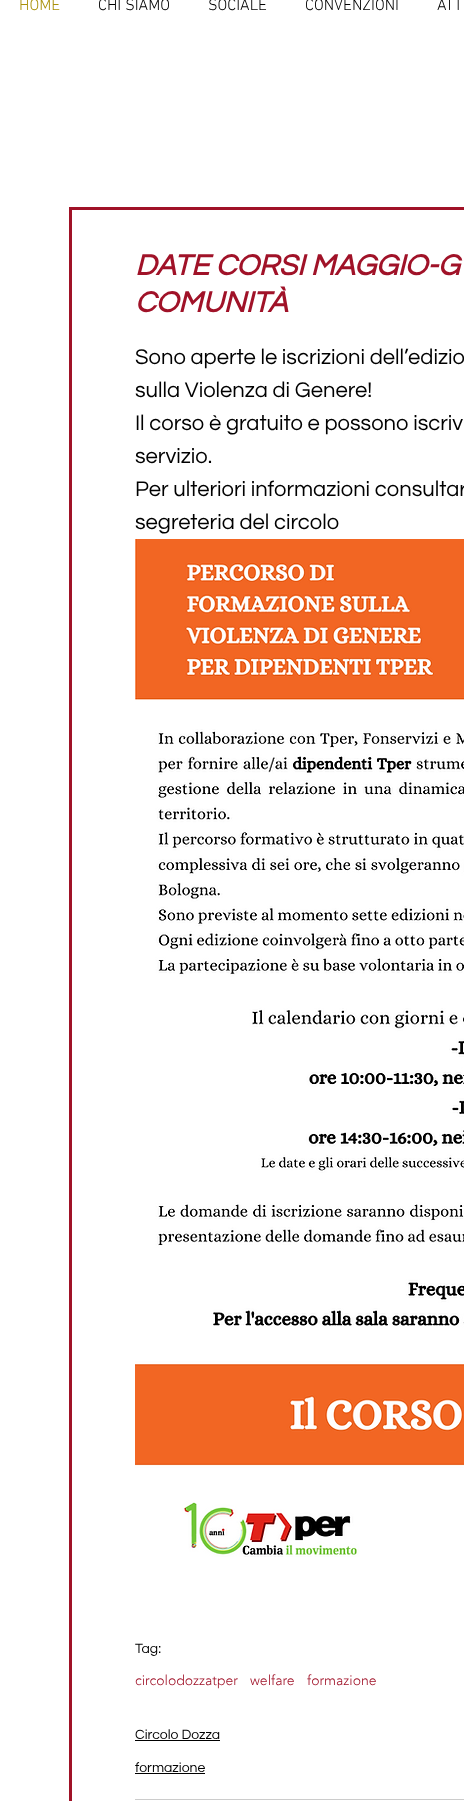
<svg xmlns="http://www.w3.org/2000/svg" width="464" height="1801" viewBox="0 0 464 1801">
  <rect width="100%" height="100%" fill="#ffffff"/>
  <text x="19" y="10" font-family="'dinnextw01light'" font-size="16" font-weight="300" fill="#a99009">HOME</text>
  <text x="98" y="10" font-family="'dinnextw01light'" font-size="16" font-weight="300" fill="#000000">CHI SIAMO</text>
  <text x="208" y="10" font-family="'dinnextw01light'" font-size="16" font-weight="300" fill="#000000">SOCIALE</text>
  <text x="305" y="10" font-family="'dinnextw01light'" font-size="16" font-weight="300" fill="#000000">CONVENZIONI</text>
  <text x="437" y="10" font-family="'dinnextw01light'" font-size="16" font-weight="300" fill="#000000">ATT</text>
  <rect x="70.5" y="208.5" width="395" height="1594" fill="none" stroke="#a01227" stroke-width="3"/>
  <text x="135" y="275" font-family="Questrial" font-size="30" font-weight="bold" font-style="italic" fill="#a01228">DATE CORSI MAGGIO-G</text>
  <text x="135" y="312" font-family="Questrial" font-size="30" font-weight="bold" font-style="italic" fill="#a01228">COMUNITÀ</text>
  <text x="135" y="364" font-family="Questrial" font-size="22" fill="#000000">Sono aperte le iscrizioni dell’edizio</text>
  <text x="135" y="397" font-family="Questrial" font-size="22" fill="#000000">sulla Violenza di Genere!</text>
  <text x="135" y="430" font-family="Questrial" font-size="22" fill="#000000">Il corso è gratuito e possono iscriv</text>
  <text x="135" y="463" font-family="Questrial" font-size="22" fill="#000000">servizio.</text>
  <text x="135" y="496" font-family="Questrial" font-size="22" fill="#000000">Per ulteriori informazioni consultar</text>
  <text x="135" y="529" font-family="Questrial" font-size="22" fill="#000000">segreteria del circolo</text>
  <image x="135" y="539" width="329" height="1018" href="img1.png"/>
  <text x="135" y="1653" font-family="Questrial" font-size="14" fill="#000000">Tag:</text>
  <text x="135" y="1685" font-family="'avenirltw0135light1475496'" font-size="14" font-weight="300" fill="#a01228">circolodozzatper</text>
  <text x="250" y="1685" font-family="'avenirltw0135light1475496'" font-size="14" font-weight="300" fill="#a01228">welfare</text>
  <text x="307" y="1685" font-family="'avenirltw0135light1475496'" font-size="14" font-weight="300" fill="#a01228">formazione</text>
  <text x="135" y="1739" font-family="Questrial" font-size="14" fill="#000000">Circolo Dozza</text>
  <rect x="135" y="1740" width="85" height="1" fill="#000000"/>
  <text x="135" y="1772" font-family="Questrial" font-size="14" fill="#000000">formazione</text>
  <rect x="135" y="1773" width="70" height="1" fill="#000000"/>
  <rect x="135" y="1799" width="329" height="1" fill="#cccccc"/>
</svg>
